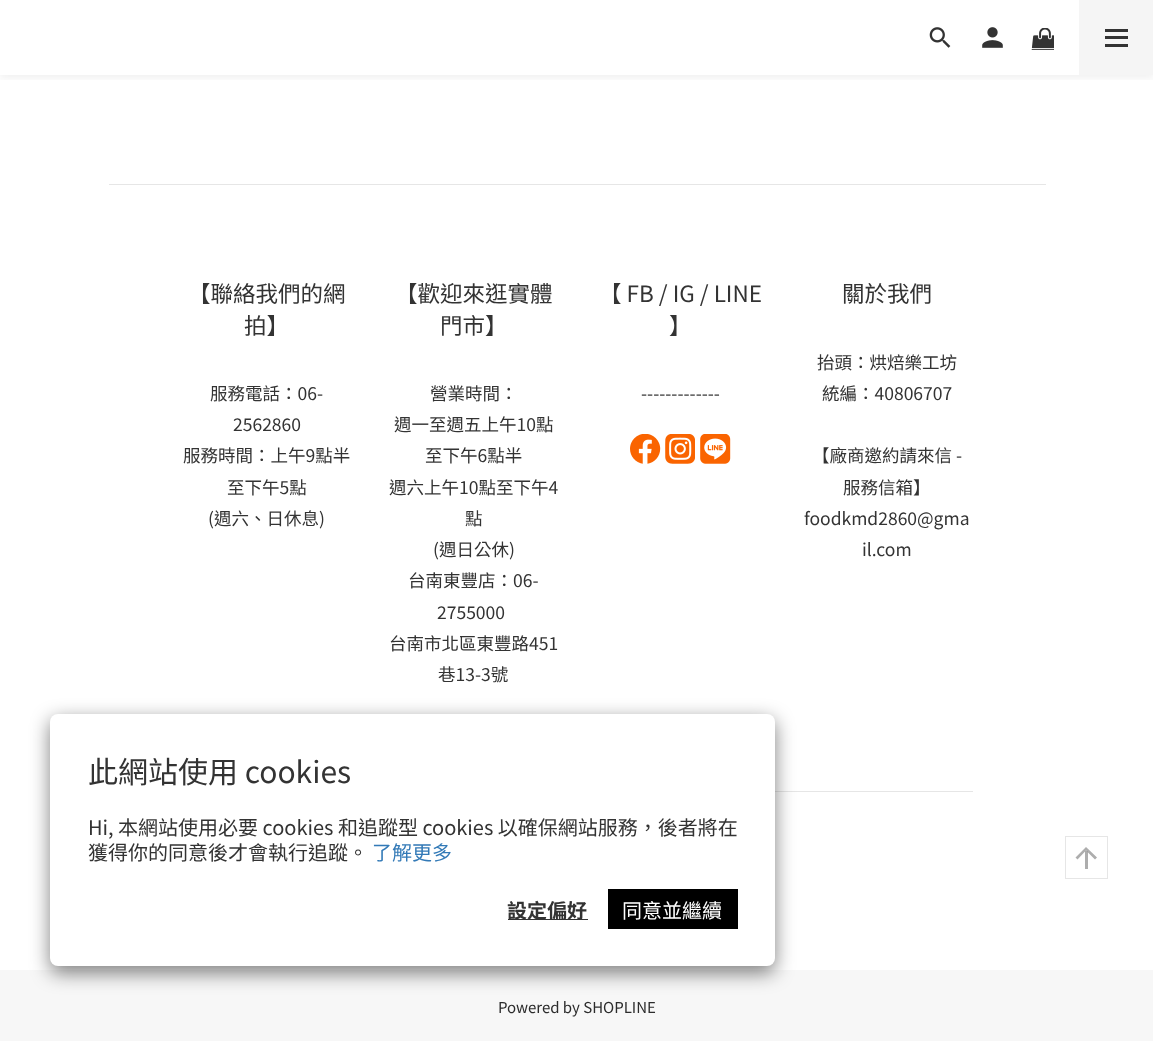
<svg xmlns="http://www.w3.org/2000/svg" width="1153" height="1041" viewBox="0 0 1153 1041">
  <defs>
    <clipPath id="clip1"><rect x="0" y="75" width="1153" height="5"/></clipPath>
    <filter id="blur1" x="-50%" y="-200%" width="200%" height="500%"><feGaussianBlur stdDeviation="4"/></filter>
    <filter id="blur2" x="-50%" y="-200%" width="200%" height="500%"><feGaussianBlur stdDeviation="9.5"/></filter>
  </defs>
  <rect width="100%" height="100%" fill="#ffffff"/>
  <g clip-path="url(#clip1)">
    <rect x="0" y="3" width="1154" height="75" fill="#000000" fill-opacity="0.06" filter="url(#blur1)"/>
  </g>
  <image x="929" y="27" width="22" height="21" href="img1.png"/>
  <image x="982" y="27" width="21" height="21" href="img2.png"/>
  <image x="1031" y="28" width="23" height="22" href="img3.png"/>
  <rect x="1079" y="0" width="74" height="75" fill="#f5f5f5"/>
  <rect x="1105" y="36" width="23" height="3" fill="#333333"/>
  <rect x="1105" y="29" width="23" height="3" fill="#333333"/>
  <rect x="1105" y="44" width="23" height="3" fill="#333333"/>
  <rect x="109" y="184" width="937" height="1" fill="#e6e6e6"/>
  <text x="188" y="302" font-family="Noto Sans TC" font-size="22.5" fill="#333333">【聯絡我們的網</text>
  <text x="244" y="334" font-family="Noto Sans TC" font-size="22.5" fill="#333333">拍】</text>
  <text x="210" y="400" font-family="Noto Sans TC" font-size="17.5" fill="#333333">服務電話：06-</text>
  <text x="233" y="431" font-family="Noto Sans TC" font-size="17.5" fill="#333333">2562860</text>
  <text x="183" y="462" font-family="Noto Sans TC" font-size="17.5" fill="#333333">服務時間：上午9點半</text>
  <text x="227" y="494" font-family="Noto Sans TC" font-size="17.5" fill="#333333">至下午5點</text>
  <text x="208" y="525" font-family="Noto Sans TC" font-size="17.5" fill="#333333">(週六、日休息)</text>
  <text x="395" y="302" font-family="Noto Sans TC" font-size="22.5" fill="#333333">【歡迎來逛實體</text>
  <text x="440" y="334" font-family="Noto Sans TC" font-size="22.5" fill="#333333">門市】</text>
  <text x="430" y="400" font-family="Noto Sans TC" font-size="17.5" fill="#333333">營業時間：</text>
  <text x="394" y="431" font-family="Noto Sans TC" font-size="17.5" fill="#333333">週一至週五上午10點</text>
  <text x="425" y="462" font-family="Noto Sans TC" font-size="17.5" fill="#333333">至下午6點半</text>
  <text x="389" y="494" font-family="Noto Sans TC" font-size="17.5" fill="#333333">週六上午10點至下午4</text>
  <text x="465" y="525" font-family="Noto Sans TC" font-size="17.5" fill="#333333">點</text>
  <text x="433" y="556" font-family="Noto Sans TC" font-size="17.5" fill="#333333">(週日公休)</text>
  <text x="408" y="587" font-family="Noto Sans TC" font-size="17.5" fill="#333333">台南東豐店：06-</text>
  <text x="437" y="619" font-family="Noto Sans TC" font-size="17.5" fill="#333333">2755000</text>
  <text x="389" y="650" font-family="Noto Sans TC" font-size="17.5" fill="#333333">台南市北區東豐路451</text>
  <text x="438" y="681" font-family="Noto Sans TC" font-size="17.5" fill="#333333">巷13-3號</text>
  <text x="599" y="302" font-family="Noto Sans TC" font-size="22.5" fill="#333333">【 FB / IG / LINE</text>
  <text x="669" y="334" font-family="Noto Sans TC" font-size="22.5" fill="#333333">】</text>
  <text x="641" y="400" font-family="Noto Sans TC" font-size="17.5" fill="#333333">-------------</text>
  <image x="630" y="434" width="31" height="30" href="img4.png"/>
  <image x="665" y="434" width="30" height="30" href="img5.png"/>
  <image x="700" y="434" width="31" height="30" href="img6.png"/>
  <text x="842" y="302" font-family="Noto Sans TC" font-size="22.5" fill="#333333">關於我們</text>
  <text x="817" y="369" font-family="Noto Sans TC" font-size="17.5" fill="#333333">抬頭：烘焙樂工坊</text>
  <text x="822" y="400" font-family="Noto Sans TC" font-size="17.5" fill="#333333">統編：40806707</text>
  <text x="812" y="462" font-family="Noto Sans TC" font-size="17.5" fill="#333333">【廠商邀約請來信 -</text>
  <text x="843" y="494" font-family="Noto Sans TC" font-size="17.5" fill="#333333">服務信箱】</text>
  <text x="804" y="525" font-family="Noto Sans TC" font-size="17.5" fill="#333333">foodkmd2860@gma</text>
  <text x="862" y="556" font-family="Noto Sans TC" font-size="17.5" fill="#333333">il.com</text>
  <rect x="775" y="791" width="198" height="1" fill="#e6e6e6"/>
  <rect x="0" y="970" width="1153" height="71" fill="#f7f7f7"/>
  <text x="498" y="1013" font-family="Noto Sans TC" font-size="15" fill="#2c2c2c">Powered by SHOPLINE</text>
  <rect x="50" y="720" width="725" height="253" rx="8" fill="#000000" fill-opacity="0.5" filter="url(#blur2)"/>
  <rect x="50" y="714" width="725" height="252" rx="8" fill="#ffffff"/>
  <text x="88" y="783" font-family="Noto Sans TC" font-size="30" fill="#333333">此網站使用 cookies</text>
  <text x="88" y="835" font-family="Noto Sans TC" font-size="20" fill="#333333">Hi, 本網站使用必要 cookies 和追蹤型 cookies 以確保網站服務，後者將在</text>
  <text x="88" y="860" font-family="Noto Sans TC" font-size="20" fill="#333333">獲得你的同意後才會執行追蹤。</text>
  <text x="372" y="860" font-family="Noto Sans TC" font-size="20" fill="#337ab7">了解更多</text>
  <rect x="508" y="919" width="80" height="1" fill="#333333"/>
  <text x="507" y="918" font-family="Noto Sans TC" font-size="20" font-weight="bold" fill="#333333">設定偏好</text>
  <rect x="608" y="889" width="130" height="40" fill="#000000"/>
  <text x="622" y="918" font-family="Noto Sans TC" font-size="20" fill="#ffffff">同意並繼續</text>
  <rect x="1065.5" y="836.5" width="42" height="42" fill="none" stroke="#e6e6e6"/>
  <path d="M1086 847L1097 857.5L1095 859.5L1086 850.5ZM1075.5 857.5L1086 847V850.5L1077.5 859.5Z" fill="#adadad"/>
  <rect x="1085" y="851" width="3" height="18" fill="#999999" fill-opacity="0.8"/>
</svg>
